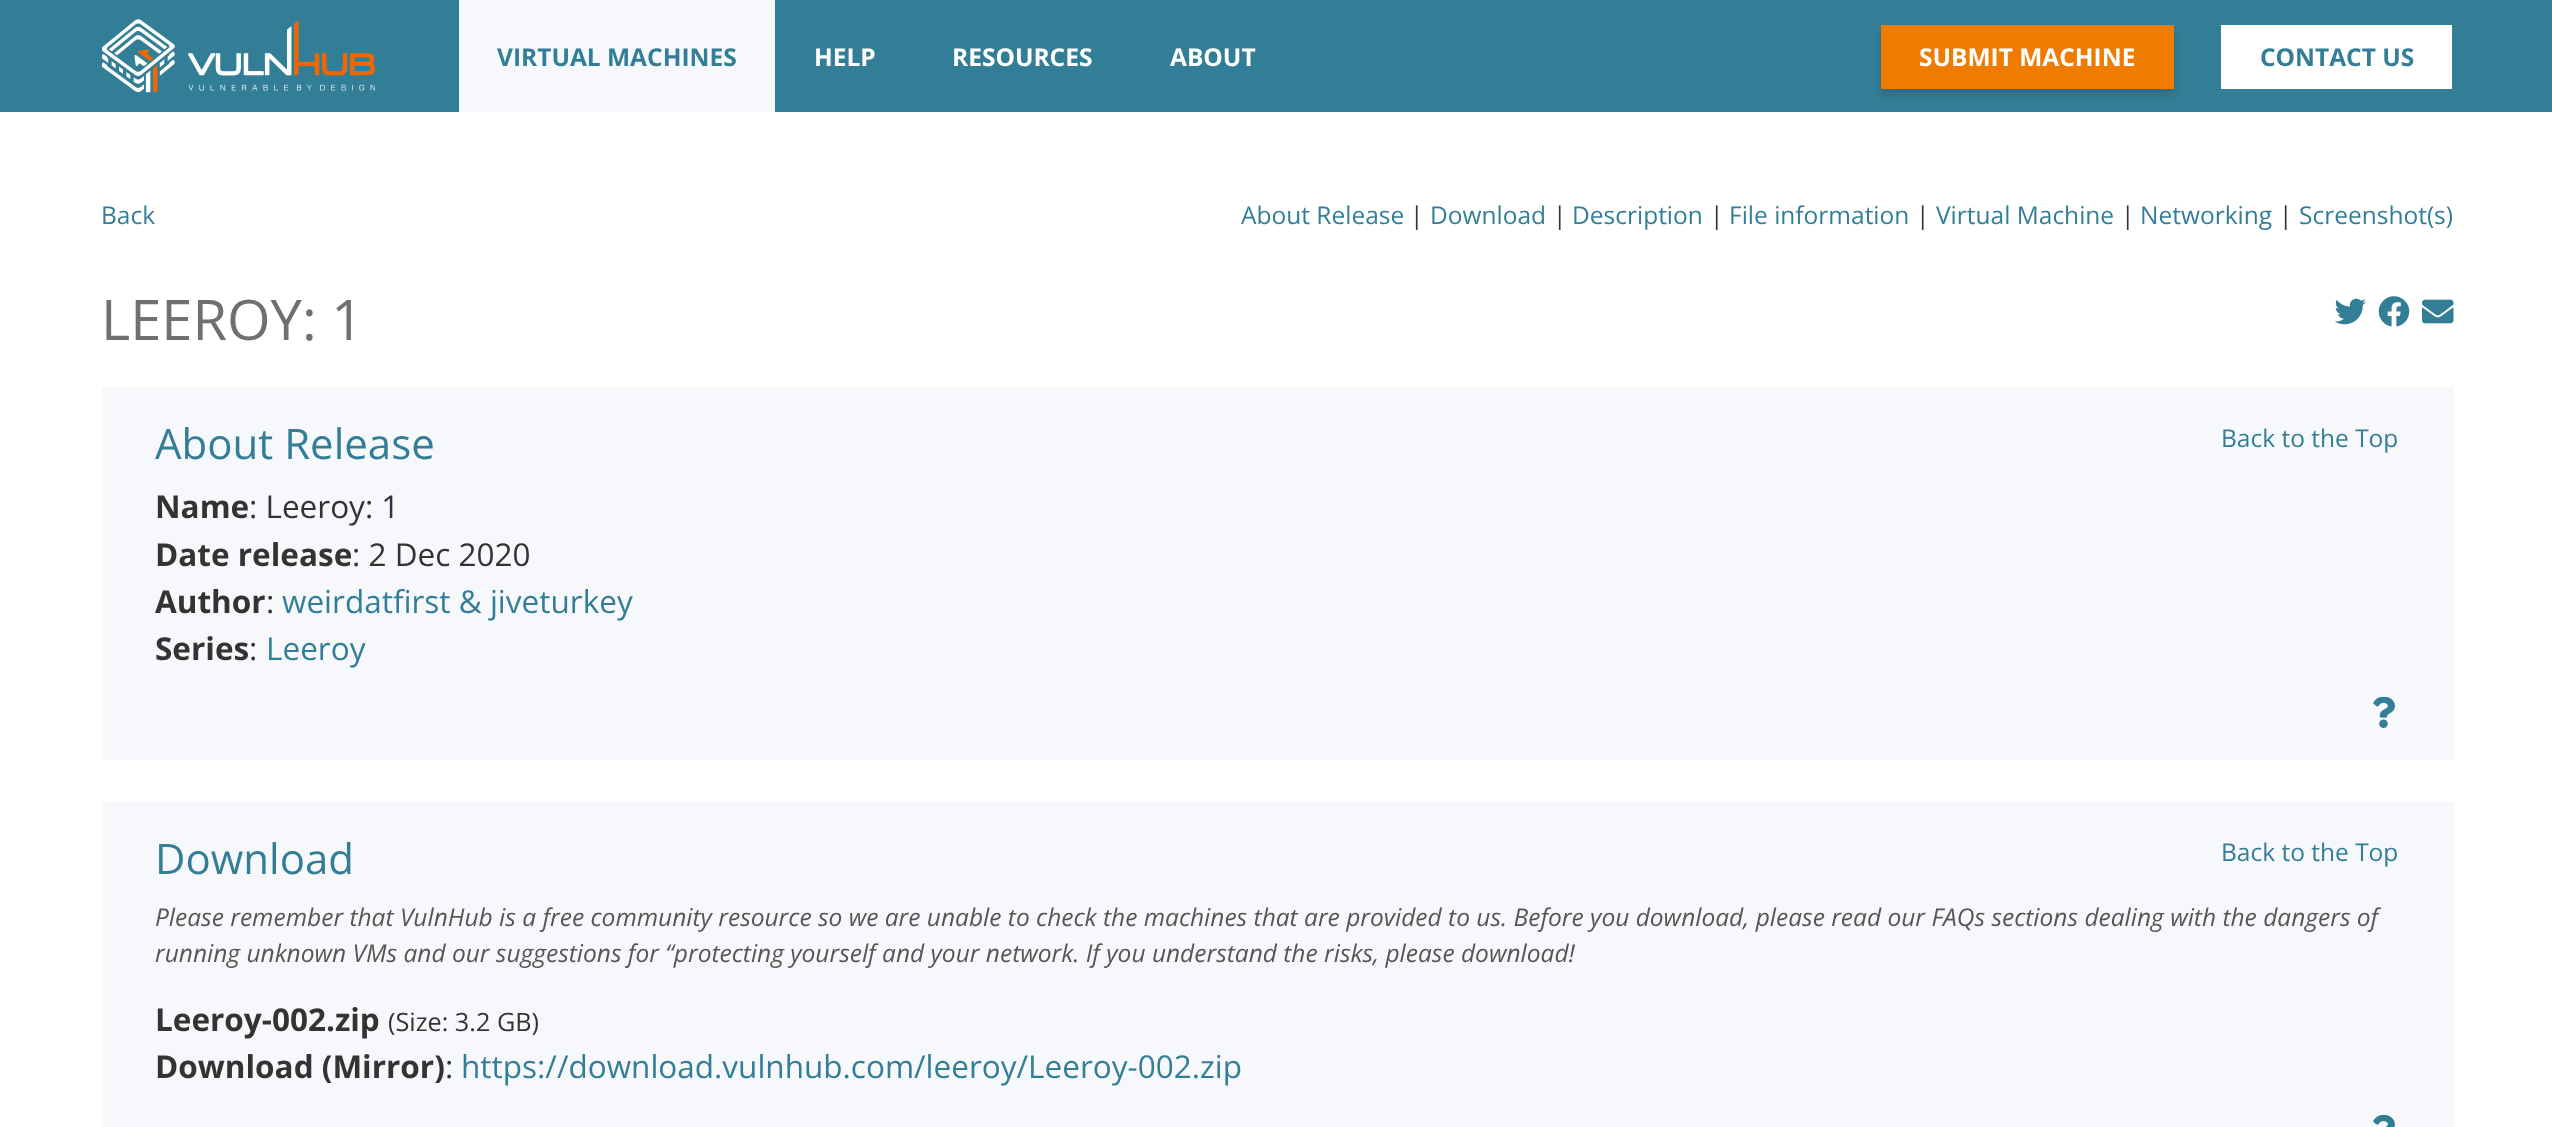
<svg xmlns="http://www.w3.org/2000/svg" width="2552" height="1127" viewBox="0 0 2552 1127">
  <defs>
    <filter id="blur1" x="-50%" y="-200%" width="200%" height="500%"><feGaussianBlur stdDeviation="5"/></filter>
  </defs>
  <rect width="100%" height="100%" fill="#ffffff"/>
  <rect x="0" y="0" width="2552" height="112" fill="#337e97"/>
  <image x="102" y="19" width="273" height="74" href="img1.png"/>
  <rect x="459" y="0" width="316" height="112" fill="#f7f8fb"/>
  <text x="497" y="66" font-family="Open Sans" font-size="24.5" font-weight="bold" fill="#337e97">VIRTUAL MACHINES</text>
  <text x="814" y="66" font-family="Open Sans" font-size="24.5" font-weight="bold" fill="#ffffff">HELP</text>
  <text x="952" y="66" font-family="Open Sans" font-size="24.5" font-weight="bold" fill="#ffffff">RESOURCES</text>
  <text x="1170" y="66" font-family="Open Sans" font-size="24.5" font-weight="bold" fill="#ffffff">ABOUT</text>
  <rect x="1881" y="30" width="293" height="65" fill="#000000" fill-opacity="0.16" filter="url(#blur1)"/>
  <rect x="1881" y="25" width="293" height="64" fill="#ef7c00"/>
  <text x="1919" y="66" font-family="Open Sans" font-size="24.5" font-weight="bold" fill="#ffffff">SUBMIT MACHINE</text>
  <rect x="2221" y="25" width="231" height="64" fill="#ffffff"/>
  <text x="2260" y="66" font-family="Open Sans" font-size="24.5" font-weight="bold" fill="#337e97">CONTACT US</text>
  <text x="101" y="224" font-family="Open Sans" font-size="24.5" fill="#337e97">Back</text>
  <text x="1241" y="224" font-family="Open Sans" font-size="24.5" fill="#337e97">About Release</text>
  <text x="1410" y="224" font-family="Open Sans" font-size="24.5" fill="#333333">|</text>
  <text x="1430" y="224" font-family="Open Sans" font-size="24.5" fill="#337e97">Download</text>
  <text x="1553" y="224" font-family="Open Sans" font-size="24.5" fill="#333333">|</text>
  <text x="1572" y="224" font-family="Open Sans" font-size="24.5" fill="#337e97">Description</text>
  <text x="1710" y="224" font-family="Open Sans" font-size="24.5" fill="#333333">|</text>
  <text x="1729" y="224" font-family="Open Sans" font-size="24.5" fill="#337e97">File information</text>
  <text x="1916" y="224" font-family="Open Sans" font-size="24.5" fill="#333333">|</text>
  <text x="1936" y="224" font-family="Open Sans" font-size="24.5" fill="#337e97">Virtual Machine</text>
  <text x="2121" y="224" font-family="Open Sans" font-size="24.5" fill="#333333">|</text>
  <text x="2140" y="224" font-family="Open Sans" font-size="24.5" fill="#337e97">Networking</text>
  <text x="2279" y="224" font-family="Open Sans" font-size="24.5" fill="#333333">|</text>
  <text x="2299" y="224" font-family="Open Sans" font-size="24.5" fill="#337e97">Screenshot(s)</text>
  <text x="101" y="340" font-family="Open Sans" font-size="56" fill="#707070">LEEROY: 1</text>
  <image x="2335" y="298" width="31" height="27" href="img2.png"/>
  <image x="2378" y="296" width="32" height="31" href="img3.png"/>
  <image x="2422" y="299" width="32" height="25" href="img4.png"/>
  <rect x="102" y="387" width="2352" height="373" fill="#f7f8fb"/>
  <text x="155" y="459" font-family="Open Sans" font-size="42" fill="#337e97">About Release</text>
  <text x="2221" y="447" font-family="Open Sans" font-size="24.5" fill="#337e97">Back to the Top</text>
  <text x="155" y="518" font-family="Open Sans" font-size="31.5" font-weight="bold" fill="#333333">Name</text>
  <text x="249" y="518" font-family="Open Sans" font-size="31.5" fill="#333333">: Leeroy: 1</text>
  <text x="155" y="566" font-family="Open Sans" font-size="31.5" font-weight="bold" fill="#333333">Date release</text>
  <text x="352" y="566" font-family="Open Sans" font-size="31.5" fill="#333333">: 2 Dec 2020</text>
  <text x="155" y="613" font-family="Open Sans" font-size="31.5" font-weight="bold" fill="#333333">Author</text>
  <text x="266" y="613" font-family="Open Sans" font-size="31.5" fill="#333333">:</text>
  <text x="282" y="613" font-family="Open Sans" font-size="31.5" fill="#337e97">weirdatfirst &amp; jiveturkey</text>
  <text x="155" y="660" font-family="Open Sans" font-size="31.5" font-weight="bold" fill="#333333">Series</text>
  <text x="249" y="660" font-family="Open Sans" font-size="31.5" fill="#333333">:</text>
  <text x="266" y="660" font-family="Open Sans" font-size="31.5" fill="#337e97">Leeroy</text>
  <image x="2373" y="697" width="22" height="31" href="img5.png"/>
  <rect x="102" y="802" width="2352" height="325" fill="#f7f8fb"/>
  <text x="155" y="874" font-family="Open Sans" font-size="42" fill="#337e97">Download</text>
  <text x="2221" y="861" font-family="Open Sans" font-size="24.5" fill="#337e97">Back to the Top</text>
  <text x="155" y="926" font-family="Open Sans" font-size="24.5" font-style="italic" fill="#575656">Please remember that VulnHub is a free community resource so we are unable to check the machines that are provided to us. Before you download, please read our FAQs sections dealing with the dangers of</text>
  <text x="155" y="962" font-family="Open Sans" font-size="24.5" font-style="italic" fill="#575656">running unknown VMs and our suggestions for “protecting yourself and your network. If you understand the risks, please download!</text>
  <text x="155" y="1031" font-family="Open Sans" font-size="31.5" font-weight="bold" fill="#333333">Leeroy-002.zip</text>
  <text x="388" y="1031" font-family="Open Sans" font-size="25.25" fill="#333333">(Size: 3.2 GB)</text>
  <text x="155" y="1078" font-family="Open Sans" font-size="31.5" font-weight="bold" fill="#333333">Download (Mirror)</text>
  <text x="445" y="1078" font-family="Open Sans" font-size="31.5" fill="#333333">:</text>
  <text x="461" y="1078" font-family="Open Sans" font-size="31.5" fill="#337e97">https://download.vulnhub.com/leeroy/Leeroy-002.zip</text>
  <image x="2373" y="1115" width="22" height="12" href="img6.png"/>
</svg>
